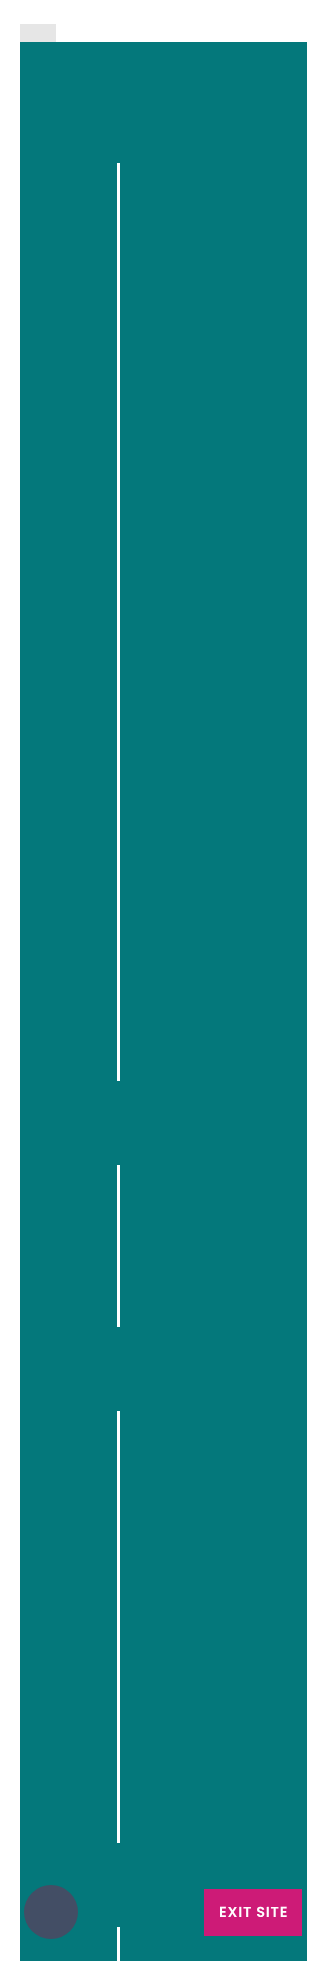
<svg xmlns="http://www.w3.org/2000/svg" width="327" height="1961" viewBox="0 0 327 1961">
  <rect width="100%" height="100%" fill="#ffffff"/>
  <rect x="20" y="42" width="287" height="1919" fill="#04787b"/>
  <circle cx="51" cy="1912" r="27" fill="#434e65"/>
  <rect x="20" y="24" width="36" height="18" fill="#e6e6e6"/>
  <rect x="117" y="163" width="3" height="918" fill="#ffffff"/>
  <rect x="117" y="1165" width="3" height="162" fill="#ffffff"/>
  <rect x="117" y="1411" width="3" height="432" fill="#ffffff"/>
  <rect x="117" y="1927" width="3" height="34" fill="#ffffff"/>
  <rect x="204" y="1889" width="98" height="47" fill="#cd1b77"/>
  <text x="219" y="1917" font-family="Poppins" font-size="14.5" font-weight="600" letter-spacing="0.75" fill="#ffffff">EXIT SITE</text>
</svg>
